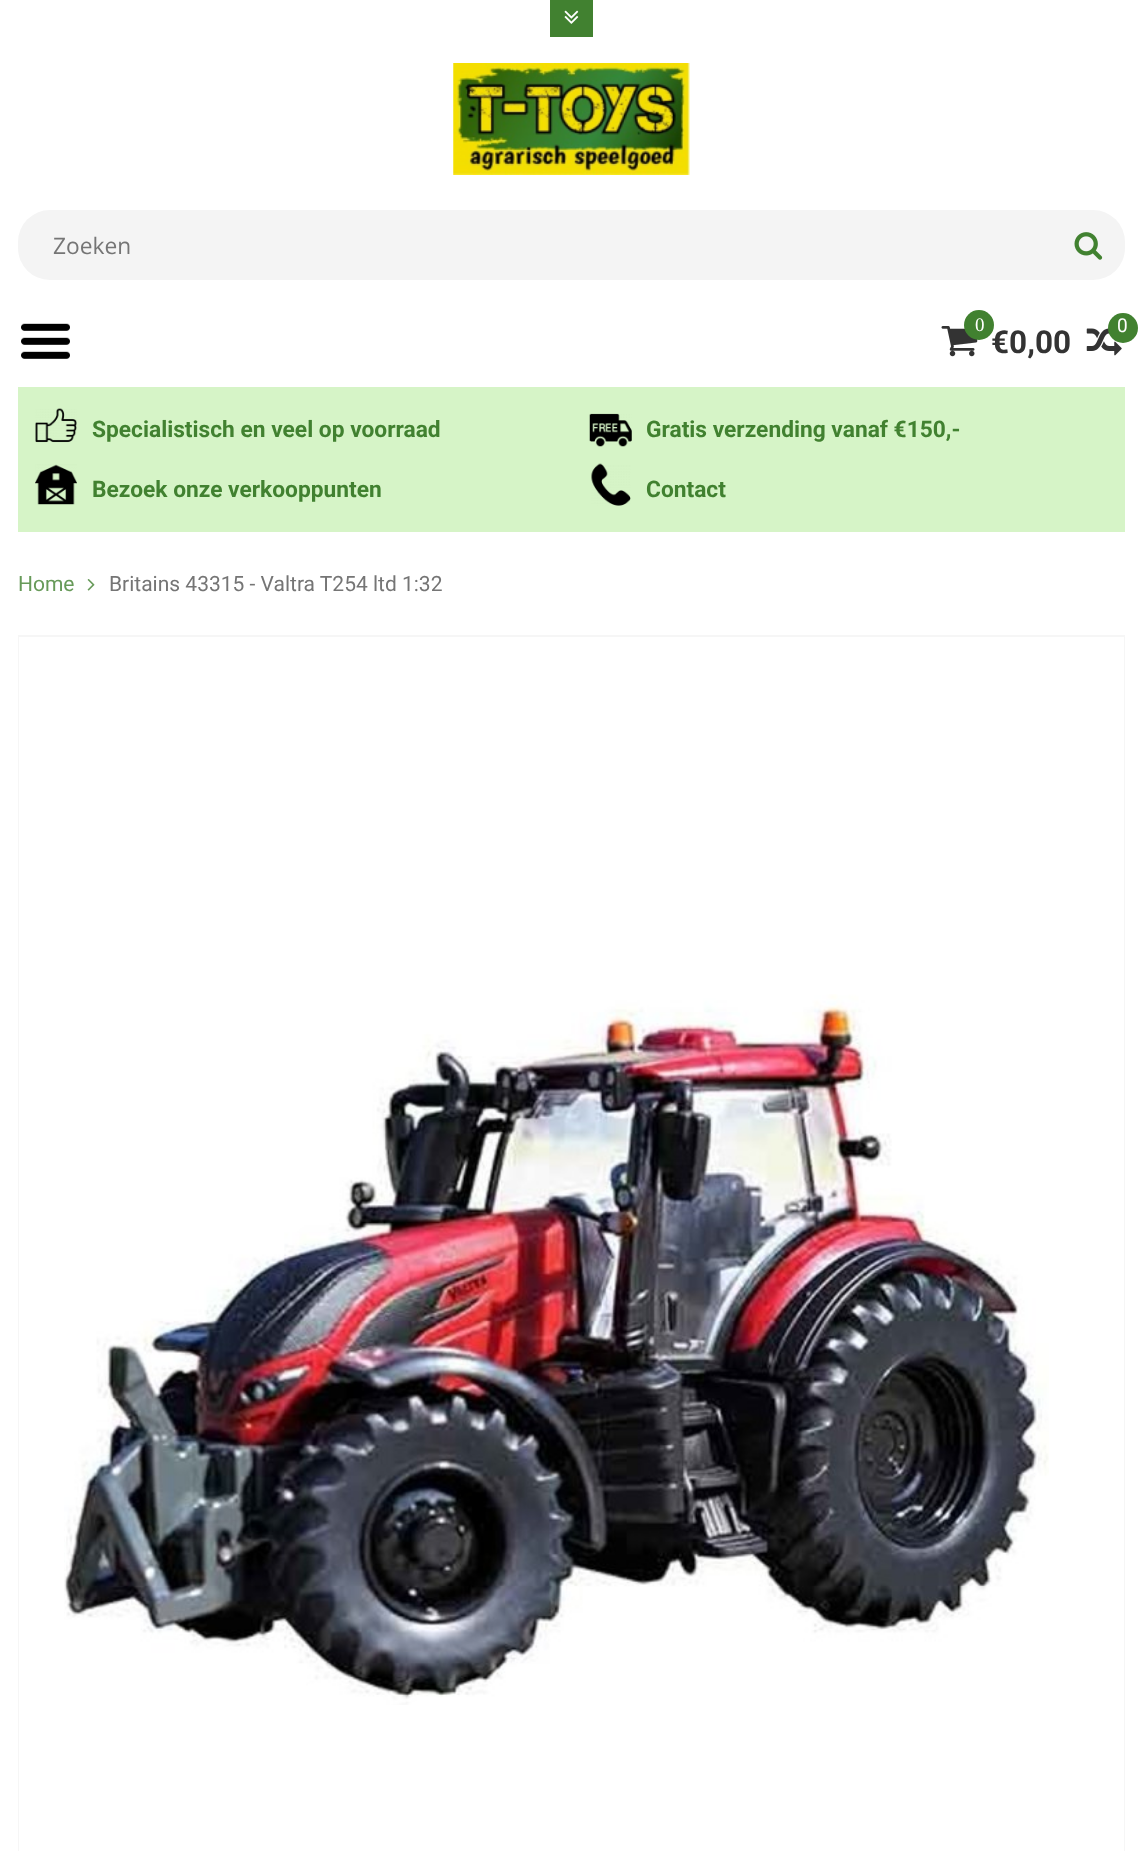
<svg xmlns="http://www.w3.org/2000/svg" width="1142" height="1851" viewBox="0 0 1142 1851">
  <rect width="100%" height="100%" fill="#ffffff"/>
  <rect x="550" y="0" width="43" height="37" fill="#418130"/>
  <image x="564" y="10" width="15" height="14" href="img1.png"/>
  <image x="453" y="63" width="237" height="112" href="img2.png"/>
  <rect x="18" y="210" width="1107" height="70" rx="32" fill="#f4f4f4"/>
  <text x="53" y="254" font-family="Open Sans" font-size="22.75" fill="#757575">Zoeken</text>
  <image x="1074" y="232" width="29" height="28" href="img3.png"/>
  <image x="21" y="323" width="49" height="36" href="img4.png"/>
  <image x="941" y="326" width="37" height="31" href="img5.png"/>
  <text x="991" y="353" font-family="Roboto" font-size="31.5" font-weight="bold" fill="#333333">€0,00</text>
  <circle cx="979" cy="325" r="15" fill="#418130"/>
  <text x="975" y="331" font-family="Liberation Serif" font-size="19" fill="#ffffff">0</text>
  <image x="1086" y="328" width="36" height="28" href="img6.png"/>
  <circle cx="1123" cy="328" r="15" fill="#418130"/>
  <text x="1117" y="332" font-family="Roboto" font-size="19" fill="#ffffff">0</text>
  <rect x="18" y="387" width="1107" height="145" fill="#d6f4c7"/>
  <image x="35" y="408" width="42" height="35" href="img7.png"/>
  <text x="92" y="437" font-family="Roboto" font-size="22.75" font-weight="bold" fill="#418130">Specialistisch en veel op voorraad</text>
  <image x="589" y="413" width="43" height="34" href="img8.png"/>
  <text x="646" y="437" font-family="Roboto" font-size="22.75" font-weight="bold" fill="#418130">Gratis verzending vanaf €150,-</text>
  <image x="35" y="464" width="42" height="41" href="img9.png"/>
  <text x="92" y="497" font-family="Roboto" font-size="22.75" font-weight="bold" fill="#418130">Bezoek onze verkooppunten</text>
  <image x="591" y="463" width="40" height="43" href="img10.png"/>
  <text x="646" y="497" font-family="Roboto" font-size="22.75" font-weight="bold" fill="#418130">Contact</text>
  <text x="18" y="591" font-family="Roboto" font-size="21" fill="#679a59">Home</text>
  <image x="87" y="579" width="8" height="12" href="img11.png"/>
  <text x="109" y="591" font-family="Roboto" font-size="21" fill="#757575">Britains 43315 - Valtra T254 ltd 1:32</text>
  <rect x="19" y="636" width="1105" height="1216" fill="none" stroke="#f6f6f6" stroke-width="2"/>
  <rect x="19" y="637" width="1105" height="1214" fill="#ffffff"/>
  <image x="64" y="994" width="985" height="711" href="img12.png"/>
</svg>
